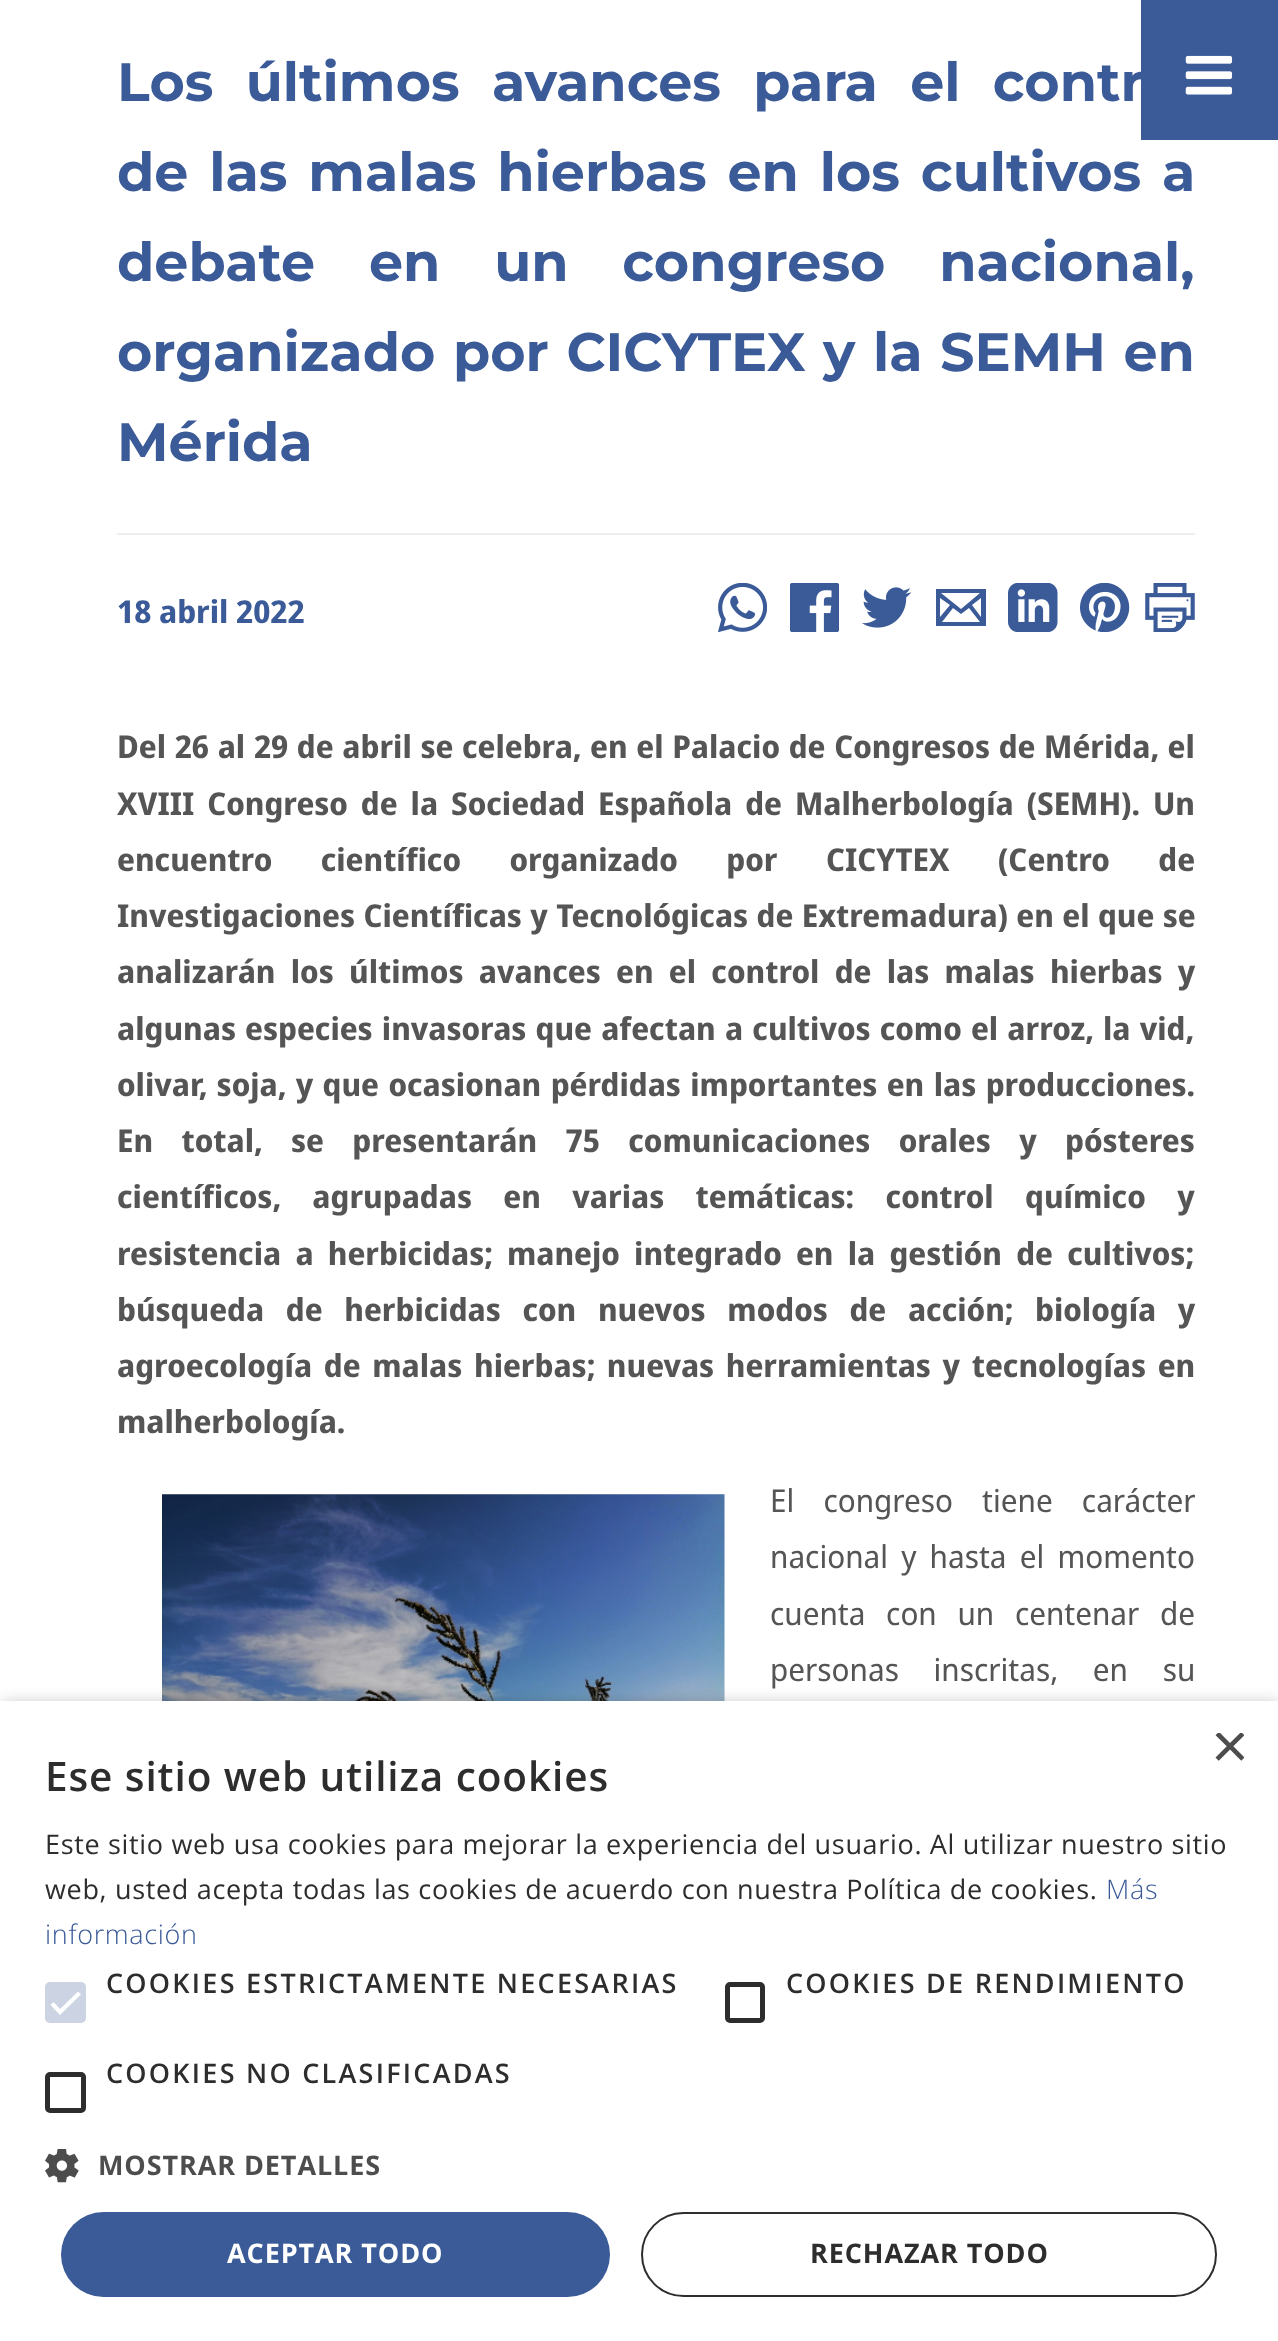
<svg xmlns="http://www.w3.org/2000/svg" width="1278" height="2341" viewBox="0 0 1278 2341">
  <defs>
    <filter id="blur1" x="-50%" y="-200%" width="200%" height="500%"><feGaussianBlur stdDeviation="9"/></filter>
    <clipPath id="clip1"><rect x="1211" y="1733" width="33" height="33"/></clipPath>
  </defs>
  <rect width="100%" height="100%" fill="#ffffff"/>
  <text x="117" y="101" word-spacing="17" font-family="Montserrat" font-size="54" font-weight="100" fill="#3a5a98">Los últimos avances para el contr</text>
  <text x="117" y="191" word-spacing="5.5" font-family="Montserrat" font-size="54" font-weight="100" fill="#3a5a98">de las malas hierbas en los cultivos a</text>
  <text x="117" y="281" word-spacing="38.5" font-family="Montserrat" font-size="54" font-weight="100" fill="#3a5a98">debate en un congreso nacional,</text>
  <text x="117" y="371" word-spacing="2.25" font-family="Montserrat" font-size="54" font-weight="100" fill="#3a5a98">organizado por CICYTEX y la SEMH en</text>
  <text x="117" y="461" font-family="Montserrat" font-size="54" font-weight="100" fill="#3a5a98">Mérida</text>
  <rect x="117" y="533" width="1078" height="2" fill="#eeeeee"/>
  <text x="117" y="623" font-family="Noto Sans Display" font-size="31.5" font-weight="bold" fill="#3a5a98">18 abril 2022</text>
  <image x="718" y="583" width="49" height="49" href="img1.png"/>
  <image x="790" y="583" width="49" height="49" href="img2.png"/>
  <image x="862" y="587" width="49" height="41" href="img3.png"/>
  <path d="M936 589V626H986V589ZM950 605L940 617V598ZM941 593H980L961 609ZM953 608L961 614L969 608L980 622H942ZM972 605L981 598V617Z" fill="#3a5a98" fill-rule="evenodd"/>
  <image x="1008" y="583" width="50" height="49" href="img4.png"/>
  <image x="1080" y="583" width="50" height="49" href="img5.png"/>
  <image x="1145" y="583" width="50" height="49" href="img6.png"/>
  <text x="117" y="758" word-spacing="1" font-family="Noto Sans Display" font-size="31.5" font-weight="bold" fill="#555555">Del 26 al 29 de abril se celebra, en el Palacio de Congresos de Mérida, el</text>
  <text x="117" y="815" word-spacing="5.25" font-family="Noto Sans Display" font-size="31.5" font-weight="bold" fill="#555555">XVIII Congreso de la Sociedad Española de Malherbología (SEMH). Un</text>
  <text x="117" y="871" word-spacing="40.75" font-family="Noto Sans Display" font-size="31.5" font-weight="bold" fill="#555555">encuentro científico organizado por CICYTEX (Centro de</text>
  <text x="117" y="927" word-spacing="0.75" font-family="Noto Sans Display" font-size="31.5" font-weight="bold" fill="#555555">Investigaciones Científicas y Tecnológicas de Extremadura) en el que se</text>
  <text x="117" y="983" word-spacing="7.6" font-family="Noto Sans Display" font-size="31.5" font-weight="bold" fill="#555555">analizarán los últimos avances en el control de las malas hierbas y</text>
  <text x="117" y="1040" word-spacing="1.5" font-family="Noto Sans Display" font-size="31.5" font-weight="bold" fill="#555555">algunas especies invasoras que afectan a cultivos como el arroz, la vid,</text>
  <text x="117" y="1096" word-spacing="1.75" font-family="Noto Sans Display" font-size="31.5" font-weight="bold" fill="#555555">olivar, soja, y que ocasionan pérdidas importantes en las producciones.</text>
  <text x="117" y="1152" word-spacing="20.75" font-family="Noto Sans Display" font-size="31.5" font-weight="bold" fill="#555555">En total, se presentarán 75 comunicaciones orales y pósteres</text>
  <text x="117" y="1208" word-spacing="23.75" font-family="Noto Sans Display" font-size="31.5" font-weight="bold" fill="#555555">científicos, agrupadas en varias temáticas: control químico y</text>
  <text x="117" y="1265" word-spacing="6.5" font-family="Noto Sans Display" font-size="31.5" font-weight="bold" fill="#555555">resistencia a herbicidas; manejo integrado en la gestión de cultivos;</text>
  <text x="117" y="1321" word-spacing="14" font-family="Noto Sans Display" font-size="31.5" font-weight="bold" fill="#555555">búsqueda de herbicidas con nuevos modos de acción; biología y</text>
  <text x="117" y="1377" word-spacing="4" font-family="Noto Sans Display" font-size="31.5" font-weight="bold" fill="#555555">agroecología de malas hierbas; nuevas herramientas y tecnologías en</text>
  <text x="117" y="1433" font-family="Noto Sans Display" font-size="31.5" font-weight="bold" fill="#555555">malherbología.</text>
  <image x="162" y="1494" width="563" height="207" href="img7.png"/>
  <text x="770" y="1512" word-spacing="21.5" font-family="Noto Sans Display" font-size="31.5" fill="#555555">El congreso tiene carácter</text>
  <text x="770" y="1568" word-spacing="5.5" font-family="Noto Sans Display" font-size="31.5" fill="#555555">nacional y hasta el momento</text>
  <text x="770" y="1625" word-spacing="13" font-family="Noto Sans Display" font-size="31.5" fill="#555555">cuenta con un centenar de</text>
  <text x="770" y="1681" word-spacing="27" font-family="Noto Sans Display" font-size="31.5" fill="#555555">personas inscritas, en su</text>
  <rect x="1141" y="0" width="137" height="140" fill="#3a5a98"/>
  <image x="1185" y="55" width="48" height="40" href="img8.png"/>
  <rect x="2" y="1706" width="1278" height="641" fill="#000000" fill-opacity="0.35" filter="url(#blur1)"/>
  <rect x="0" y="1701" width="1278" height="640" fill="#ffffff"/>
  <g clip-path="url(#clip1)">
    <text x="1211" y="1768" font-family="Liberation Sans" font-size="65" fill="#4d4d4d">×</text>
  </g>
  <text x="45" y="1791" font-family="Open Sans" font-size="40.5" font-weight="600" letter-spacing="0.9" fill="#2d2d2d">Ese sitio web utiliza cookies</text>
  <text x="45" y="1854" font-family="Open Sans" font-size="27" letter-spacing="0.67" fill="#2d2d2d">Este sitio web usa cookies para mejorar la experiencia del usuario. Al utilizar nuestro sitio</text>
  <text x="45" y="1899" font-family="Open Sans" font-size="27" letter-spacing="0.67" fill="#2d2d2d">web, usted acepta todas las cookies de acuerdo con nuestra Política de cookies.</text>
  <text x="1106" y="1899" font-family="Open Sans" font-size="27" font-weight="300" letter-spacing="0.67" fill="#3a5a98">Más</text>
  <text x="45" y="1944" font-family="Open Sans" font-size="27" font-weight="300" letter-spacing="0.67" fill="#3a5a98">información</text>
  <rect x="45" y="1982" width="41" height="41" rx="5" fill="#ccd4e4"/>
  <path d="M52 2003.5L60 2012L79.5 1993" fill="none" stroke="#ffffff" stroke-width="4.1"/>
  <text x="106" y="1993" font-family="Open Sans" font-size="27" font-weight="600" letter-spacing="2.25" fill="#2d2d2d">COOKIES ESTRICTAMENTE NECESARIAS</text>
  <rect x="727.5" y="1984.5" width="35" height="36" rx="2.5" fill="none" stroke="#2d2d2d" stroke-width="5"/>
  <text x="786" y="1993" font-family="Open Sans" font-size="27" font-weight="600" letter-spacing="2.25" fill="#2d2d2d">COOKIES DE RENDIMIENTO</text>
  <rect x="47.5" y="2074.5" width="36" height="36" rx="2.5" fill="none" stroke="#2d2d2d" stroke-width="5"/>
  <text x="106" y="2083" font-family="Open Sans" font-size="27" font-weight="600" letter-spacing="2.25" fill="#2d2d2d">COOKIES NO CLASIFICADAS</text>
  <image x="45" y="2149" width="34" height="34" href="img9.png"/>
  <text x="98" y="2175" font-family="Open Sans" font-size="27" font-weight="bold" letter-spacing="0.9" fill="#4d4d4d">MOSTRAR DETALLES</text>
  <rect x="61" y="2212" width="549" height="85" rx="42.5" fill="#3a5a98"/>
  <text x="227" y="2263" font-family="Open Sans" font-size="27" font-weight="bold" letter-spacing="0.9" fill="#ffffff">ACEPTAR TODO</text>
  <rect x="642" y="2213" width="574" height="83" rx="41.5" fill="none" stroke="#2d2d2d" stroke-width="2"/>
  <text x="810" y="2263" font-family="Open Sans" font-size="27" font-weight="bold" letter-spacing="0.9" fill="#2d2d2d">RECHAZAR TODO</text>
</svg>
